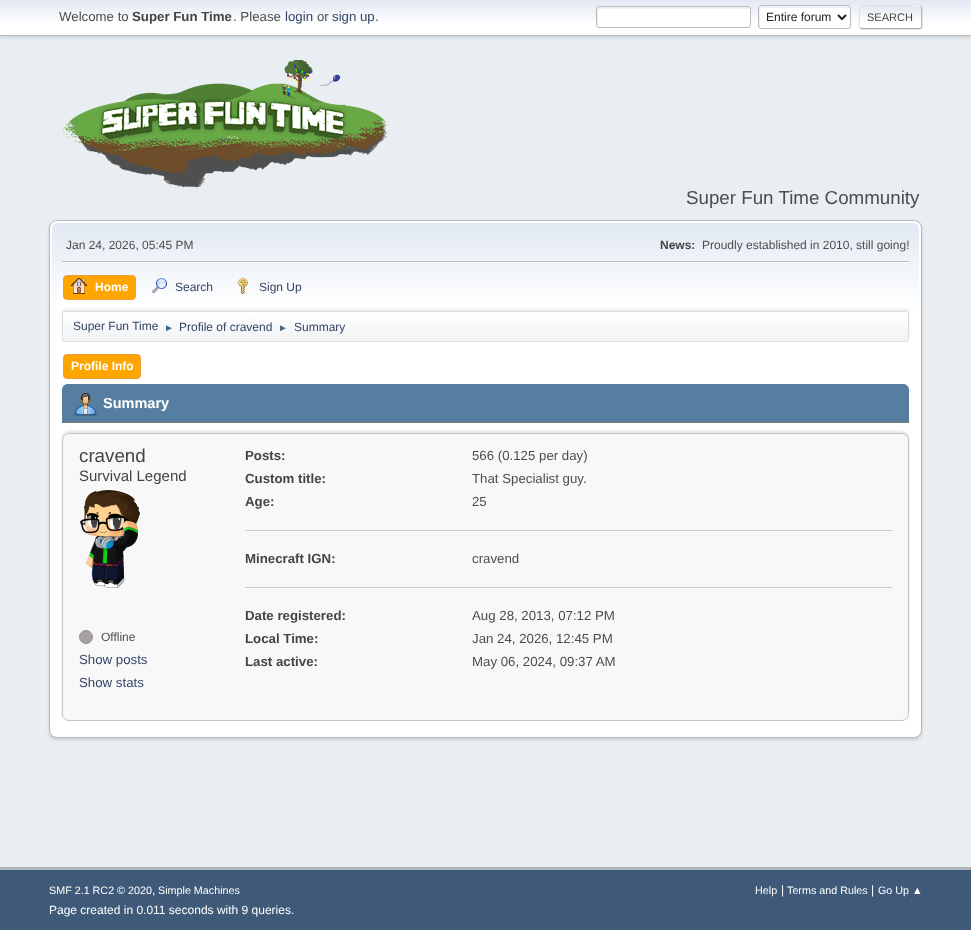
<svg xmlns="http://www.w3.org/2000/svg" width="971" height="930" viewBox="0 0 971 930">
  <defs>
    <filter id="blur1" x="-50%" y="-200%" width="200%" height="500%"><feGaussianBlur stdDeviation="2"/></filter>
    <linearGradient id="g1" gradientUnits="userSpaceOnUse" x1="486" y1="0" x2="486" y2="35"><stop offset="0" stop-color="#e2e9f3"/><stop offset="0.7" stop-color="#ffffff"/></linearGradient>
    <filter id="blur2" x="-50%" y="-200%" width="200%" height="500%"><feGaussianBlur stdDeviation="0.5"/></filter>
    <clipPath id="clip1"><rect x="859" y="5" width="63" height="24" rx="3"/></clipPath>
    <linearGradient id="g2" gradientUnits="userSpaceOnUse" x1="891" y1="-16" x2="891" y2="6"><stop offset="0" stop-color="#e2e9f3"/><stop offset="0.7" stop-color="#ffffff"/></linearGradient>
    <linearGradient id="g3" gradientUnits="userSpaceOnUse" x1="891" y1="6" x2="891" y2="28"><stop offset="0" stop-color="#e2e9f3"/><stop offset="0.7" stop-color="#ffffff"/></linearGradient>
    <filter id="blur3" x="-50%" y="-200%" width="200%" height="500%"><feGaussianBlur stdDeviation="1.5"/></filter>
    <linearGradient id="g4" gradientUnits="userSpaceOnUse" x1="486" y1="223" x2="486" y2="344"><stop offset="0" stop-color="#e2e9f3"/><stop offset="0.7" stop-color="#ffffff"/></linearGradient>
    <filter id="blur4" x="-50%" y="-200%" width="200%" height="500%"><feGaussianBlur stdDeviation="1"/></filter>
    <clipPath id="clip2"><rect x="62" y="311" width="847" height="31" rx="2"/></clipPath>
    <linearGradient id="g5" gradientUnits="userSpaceOnUse" x1="486" y1="312" x2="486" y2="341"><stop offset="0" stop-color="#ffffff"/><stop offset="0.95" stop-color="#f1f3f5"/></linearGradient>
  </defs>
  <rect width="100%" height="100%" fill="#e9eef2"/>
  <rect x="0" y="1" width="971" height="36" fill="#000000" fill-opacity="0.16" filter="url(#blur1)"/>
  <rect x="0" y="0" width="971" height="35" fill="url(#g1)"/>
  <rect x="0" y="35" width="971" height="1" fill="#bbbbbb"/>
  <text x="59" y="21" font-family="Liberation Sans" font-size="13.25" fill="#4d4d4d">Welcome to</text>
  <text x="132" y="21" font-family="Liberation Sans" font-size="13.25" font-weight="bold" fill="#444444">Super Fun Time</text>
  <text x="233" y="21" font-family="Liberation Sans" font-size="13.25" fill="#4d4d4d">. Please</text>
  <text x="285" y="21" font-family="Liberation Sans" font-size="13.25" fill="#334466">login</text>
  <text x="317" y="21" font-family="Liberation Sans" font-size="13.25" fill="#4d4d4d">or</text>
  <text x="332" y="21" font-family="Liberation Sans" font-size="13.25" fill="#334466">sign up</text>
  <text x="375" y="21" font-family="Liberation Sans" font-size="13.25" fill="#4d4d4d">.</text>
  <rect x="596" y="6" width="155" height="22" rx="3" fill="#ffffff"/>
  <path d="M600 9H750C750 8 749 7 748 7H599C598 7 597 8 597 9V25C597 26 597 26 598 27V11C598 10 599 9 600 9Z" fill="#ecf1f8"/>
  <rect x="596.5" y="6.5" width="154" height="21" rx="2.5" fill="none" stroke="#bbbbbb"/>
  <rect x="758" y="5" width="93" height="24" rx="3" fill="#ffffff"/>
  <path d="M762 8H850C850 3 838 6 834 6H776C757 6 759 2 759 17C759 19 758 27 760 28V10C760 9 761 8 762 8Z" fill="#ecf1f8"/>
  <rect x="758.5" y="5.5" width="92" height="23" rx="2.5" fill="none" stroke="#bbbbbb"/>
  <path d="M838 15L842 19L846 15" fill="none" stroke="#222222" stroke-width="2"/>
  <text x="766" y="21" font-family="Liberation Sans" font-size="12" fill="#222222">Entire forum</text>
  <rect x="860" y="6" width="63" height="24" rx="3" fill="#000000" fill-opacity="0.1" filter="url(#blur2)"/>
  <g clip-path="url(#clip1)">
    <rect x="859" y="5" width="63" height="1" fill="url(#g2)"/>
    <rect x="859" y="6" width="63" height="22" fill="url(#g3)"/>
  </g>
  <path d="M921 6C921 6.5 921.5 7.5 921.5 8V26C921.5 26.5 921 27.5 921 28" fill="none" stroke="#bbbbbb"/>
  <path d="M921 28L919 28.5H862L860 28" fill="none" stroke="#aaaaaa"/>
  <path d="M860 28C858.5 26 859.5 19 859.5 17C859.5 3.5 857.5 5.5 871.5 5.5H909.5C913.5 5.5 918 3.5 921 6" fill="none" stroke="#dddddd"/>
  <text x="867" y="21" font-family="Liberation Sans" font-size="11" fill="#444444">SEARCH</text>
  <image x="62" y="60" width="326" height="128" href="img1.png"/>
  <text x="686" y="204" font-family="Liberation Sans" font-size="18.75" fill="#4d4d4d">Super Fun Time Community</text>
  <rect x="49" y="222" width="873" height="518" rx="8" fill="#000000" fill-opacity="0.14" filter="url(#blur3)"/>
  <rect x="49.5" y="220.5" width="872" height="517" rx="7.5" fill="#ffffff" stroke="#b8b8b8"/>
  <path d="M58 223H913C916.5 223 919 225.5 919 229V344H52V229C52 225.5 54.5 223 58 223Z" fill="url(#g4)"/>
  <text x="66" y="249" font-family="Liberation Sans" font-size="12" fill="#4d4d4d">Jan 24, 2026, 05:45 PM</text>
  <text x="660" y="249" font-family="Liberation Sans" font-size="12" font-weight="bold" fill="#444444">News:</text>
  <text x="702" y="249" font-family="Liberation Sans" font-size="12" fill="#4d4d4d">Proudly established in 2010, still going!</text>
  <rect x="62" y="262" width="847" height="1" fill="#ffffff"/>
  <rect x="62" y="261" width="847" height="1" fill="#bbbbbb"/>
  <rect x="63.5" y="275.5" width="72" height="24" rx="3.5" fill="#ffa500" stroke="#f49a3a"/>
  <image x="71" y="278" width="16" height="16" href="img2.png"/>
  <text x="95" y="291" font-family="Liberation Sans" font-size="12" font-weight="bold" fill="#ffffff">Home</text>
  <image x="152" y="278" width="15" height="15" href="img3.png"/>
  <text x="175" y="291" font-family="Liberation Sans" font-size="12" fill="#334466">Search</text>
  <image x="238" y="278" width="10" height="16" href="img4.png"/>
  <text x="259" y="291" font-family="Liberation Sans" font-size="12" fill="#334466">Sign Up</text>
  <rect x="62" y="309" width="847" height="31" rx="2" fill="#000000" fill-opacity="0.08" filter="url(#blur4)"/>
  <g clip-path="url(#clip2)">
    <rect x="62" y="312" width="847" height="29" fill="url(#g5)"/>
  </g>
  <rect x="62.5" y="311.5" width="846" height="30" rx="1.5" fill="none" stroke="#dddddd"/>
  <text x="73" y="330" font-family="Liberation Sans" font-size="12" fill="#334466">Super Fun Time</text>
  <text x="164" y="331" font-family="Liberation Sans" font-size="10" fill="#3f6b8c">►</text>
  <text x="179" y="331" font-family="Liberation Sans" font-size="12" fill="#334466">Profile of cravend</text>
  <text x="278" y="331" font-family="Liberation Sans" font-size="10" fill="#3f6b8c">►</text>
  <text x="294" y="331" font-family="Liberation Sans" font-size="12" fill="#334466">Summary</text>
  <rect x="63.5" y="354.5" width="77" height="24" rx="3.5" fill="#ffa500" stroke="#f49a3a"/>
  <text x="71" y="370" font-family="Liberation Sans" font-size="12" font-weight="bold" fill="#ffffff">Profile Info</text>
  <path d="M68 384H903C906.5 384 909 386.5 909 390V423H62V390C62 386.5 64.5 384 68 384Z" fill="#557ea0"/>
  <rect x="62" y="422" width="847" height="1" fill="#777777"/>
  <image x="74" y="393" width="23" height="23" href="img5.png"/>
  <text x="103" y="408" font-family="Liberation Sans" font-size="14.5" font-weight="bold" fill="#ffffff">Summary</text>
  <rect x="62" y="431" width="847" height="288" rx="7" fill="#000000" fill-opacity="0.1" filter="url(#blur4)"/>
  <rect x="62.5" y="433.5" width="846" height="287" rx="6.5" fill="#f8f8f8" stroke="#c5c5c5"/>
  <text x="79" y="462" font-family="Liberation Sans" font-size="18.75" fill="#444444">cravend</text>
  <text x="79" y="481" font-family="Liberation Sans" font-size="15" fill="#444444">Survival Legend</text>
  <image x="79" y="489" width="62" height="100" href="img6.png"/>
  <circle cx="86" cy="637" r="6.5" fill="#a7a2a2" stroke="#969292"/>
  <text x="101" y="641" font-family="Liberation Sans" font-size="12" fill="#4d4d4d">Offline</text>
  <text x="79" y="664" font-family="Liberation Sans" font-size="13.25" fill="#334466">Show posts</text>
  <text x="79" y="687" font-family="Liberation Sans" font-size="13.25" fill="#334466">Show stats</text>
  <rect x="245" y="530" width="647" height="1" fill="#cccccc"/>
  <text x="245" y="460" font-family="Liberation Sans" font-size="13.25" font-weight="bold" fill="#444444">Posts:</text>
  <text x="472" y="460" font-family="Liberation Sans" font-size="13.25" fill="#4d4d4d">566 (0.125 per day)</text>
  <text x="245" y="483" font-family="Liberation Sans" font-size="13.25" font-weight="bold" fill="#444444">Custom title:</text>
  <text x="472" y="483" font-family="Liberation Sans" font-size="13.25" fill="#4d4d4d">That Specialist guy.</text>
  <text x="245" y="506" font-family="Liberation Sans" font-size="13.25" font-weight="bold" fill="#444444">Age:</text>
  <text x="472" y="506" font-family="Liberation Sans" font-size="13.25" fill="#4d4d4d">25</text>
  <rect x="245" y="587" width="647" height="1" fill="#cccccc"/>
  <text x="245" y="563" font-family="Liberation Sans" font-size="13.25" font-weight="bold" fill="#444444">Minecraft IGN:</text>
  <text x="472" y="563" font-family="Liberation Sans" font-size="13.25" fill="#4d4d4d">cravend</text>
  <text x="245" y="620" font-family="Liberation Sans" font-size="13.25" font-weight="bold" fill="#444444">Date registered:</text>
  <text x="472" y="620" font-family="Liberation Sans" font-size="13.25" fill="#4d4d4d">Aug 28, 2013, 07:12 PM</text>
  <text x="245" y="643" font-family="Liberation Sans" font-size="13.25" font-weight="bold" fill="#444444">Local Time:</text>
  <text x="472" y="643" font-family="Liberation Sans" font-size="13.25" fill="#4d4d4d">Jan 24, 2026, 12:45 PM</text>
  <text x="245" y="666" font-family="Liberation Sans" font-size="13.25" font-weight="bold" fill="#444444">Last active:</text>
  <text x="472" y="666" font-family="Liberation Sans" font-size="13.25" fill="#4d4d4d">May 06, 2024, 09:37 AM</text>
  <rect x="0" y="870" width="971" height="60" fill="#3e5a78"/>
  <rect x="0" y="867" width="971" height="3" fill="#b2b6bd"/>
  <text x="49" y="894" font-family="Liberation Sans" font-size="10.75" fill="#ffffff">SMF 2.1 RC2 © 2020</text>
  <text x="152" y="894" font-family="Liberation Sans" font-size="12" fill="#ffffff">,</text>
  <text x="158" y="894" font-family="Liberation Sans" font-size="10.75" fill="#ffffff">Simple Machines</text>
  <text x="755" y="894" font-family="Liberation Sans" font-size="10.75" fill="#ffffff">Help</text>
  <text x="781" y="894" font-family="Liberation Sans" font-size="12" fill="#ffffff">|</text>
  <text x="787" y="894" font-family="Liberation Sans" font-size="10.75" fill="#ffffff">Terms and Rules</text>
  <text x="871" y="894" font-family="Liberation Sans" font-size="12" fill="#ffffff">|</text>
  <text x="878" y="894" font-family="Liberation Sans" font-size="10.75" fill="#ffffff">Go Up ▲</text>
  <text x="49" y="914" font-family="Liberation Sans" font-size="12" fill="#ffffff">Page created in 0.011 seconds with 9 queries.</text>
</svg>
